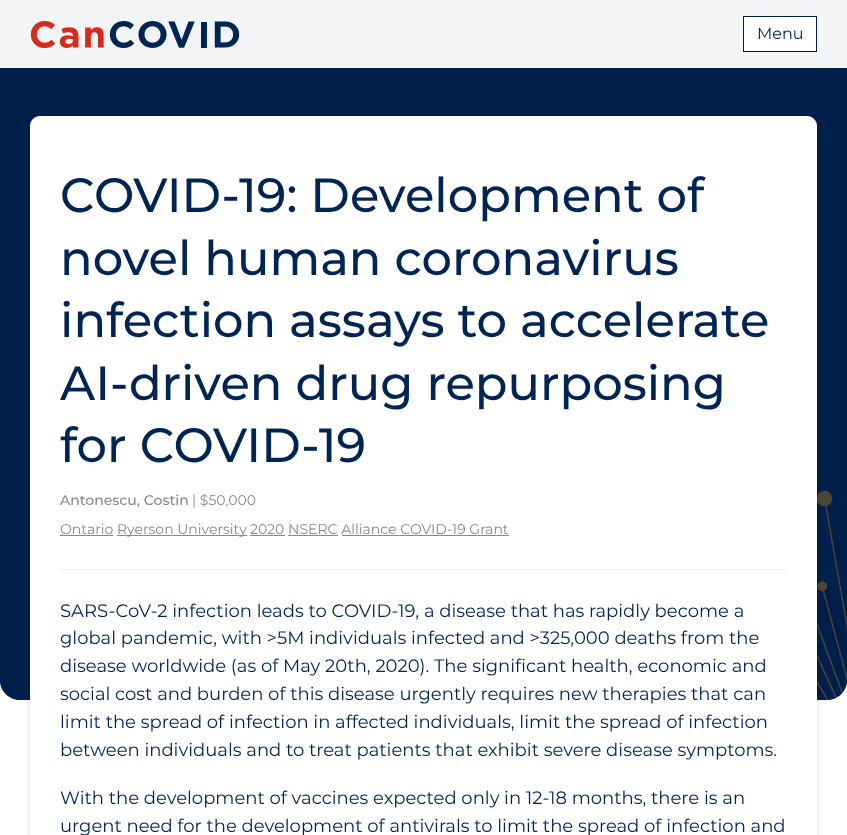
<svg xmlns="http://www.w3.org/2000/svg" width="847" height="835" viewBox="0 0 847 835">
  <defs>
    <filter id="blur1" x="-50%" y="-200%" width="200%" height="500%"><feGaussianBlur stdDeviation="3"/></filter>
  </defs>
  <rect width="100%" height="100%" fill="#ffffff"/>
  <path d="M0 0H847V680C847 691 838 700 827 700H20C9 700 0 691 0 680Z" fill="#00204a"/>
  <image x="817" y="490" width="30" height="210" href="img2.png"/>
  <path d="M0 0H847V680C847 691 838 700 827 700H20C9 700 0 691 0 680Z" fill="#00204a" fill-opacity="0.7"/>
  <rect x="0" y="0" width="847" height="68" fill="#000000" fill-opacity="0.16" filter="url(#blur1)"/>
  <rect x="0" y="0" width="847" height="68" fill="#f2f4f6"/>
  <image x="30" y="21" width="210" height="27" href="img1.png"/>
  <rect x="743.5" y="16.5" width="73" height="35" fill="#ffffff" stroke="#00204a"/>
  <text x="757" y="39" font-family="Montserrat" font-size="16" fill="#002554">Menu</text>
  <rect x="30" y="119" width="787" height="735" rx="10" fill="#000000" fill-opacity="0.16" filter="url(#blur1)"/>
  <path d="M40 116H807C812.5 116 817 120.5 817 126V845H30V126C30 120.5 34.5 116 40 116Z" fill="#ffffff"/>
  <text x="60" y="212" font-family="Montserrat" font-size="48" font-weight="500" fill="#002554">COVID-19: Development of</text>
  <text x="60" y="275" font-family="Montserrat" font-size="48" font-weight="500" fill="#002554">novel human coronavirus</text>
  <text x="60" y="337" font-family="Montserrat" font-size="48" font-weight="500" fill="#002554">infection assays to accelerate</text>
  <text x="60" y="400" font-family="Montserrat" font-size="48" font-weight="500" fill="#002554">AI-driven drug repurposing</text>
  <text x="60" y="462" font-family="Montserrat" font-size="48" font-weight="500" fill="#002554">for COVID-19</text>
  <text x="60" y="505" font-family="Montserrat" font-size="14" font-weight="500" fill="#898989">Antonescu, Costin</text>
  <text x="192" y="505" font-family="Montserrat" font-size="14" fill="#898989">| $50,000</text>
  <text x="60" y="534" font-family="Montserrat" font-size="14" fill="#898989">Ontario</text>
  <rect x="60" y="535" width="53" height="1" fill="#898989"/>
  <rect x="117" y="535" width="130" height="1" fill="#898989"/>
  <text x="117" y="534" font-family="Montserrat" font-size="14" fill="#898989">Ryerson University</text>
  <text x="250" y="534" font-family="Montserrat" font-size="14" fill="#898989">2020 NSERC Alliance COVID-19 Grant</text>
  <rect x="250" y="535" width="35" height="1" fill="#898989"/>
  <rect x="288" y="535" width="50" height="1" fill="#898989"/>
  <rect x="342" y="535" width="167" height="1" fill="#898989"/>
  <rect x="60" y="569" width="727" height="1" fill="#efefef"/>
  <text x="60" y="617" font-family="Montserrat" font-size="18" fill="#002554">SARS-CoV-2 infection leads to COVID-19, a disease that has rapidly become a</text>
  <text x="60" y="644" font-family="Montserrat" font-size="18" fill="#002554">global pandemic, with &gt;5M individuals infected and &gt;325,000 deaths from the</text>
  <text x="60" y="672" font-family="Montserrat" font-size="18" fill="#002554">disease worldwide (as of May 20th, 2020). The significant health, economic and</text>
  <text x="60" y="700" font-family="Montserrat" font-size="18" fill="#002554">social cost and burden of this disease urgently requires new therapies that can</text>
  <text x="60" y="728" font-family="Montserrat" font-size="18" fill="#002554">limit the spread of infection in affected individuals, limit the spread of infection</text>
  <text x="60" y="756" font-family="Montserrat" font-size="18" fill="#002554">between individuals and to treat patients that exhibit severe disease symptoms.</text>
  <text x="60" y="804" font-family="Montserrat" font-size="18" fill="#002554">With the development of vaccines expected only in 12-18 months, there is an</text>
  <text x="60" y="832" font-family="Montserrat" font-size="18" fill="#002554">urgent need for the development of antivirals to limit the spread of infection and</text>
</svg>
